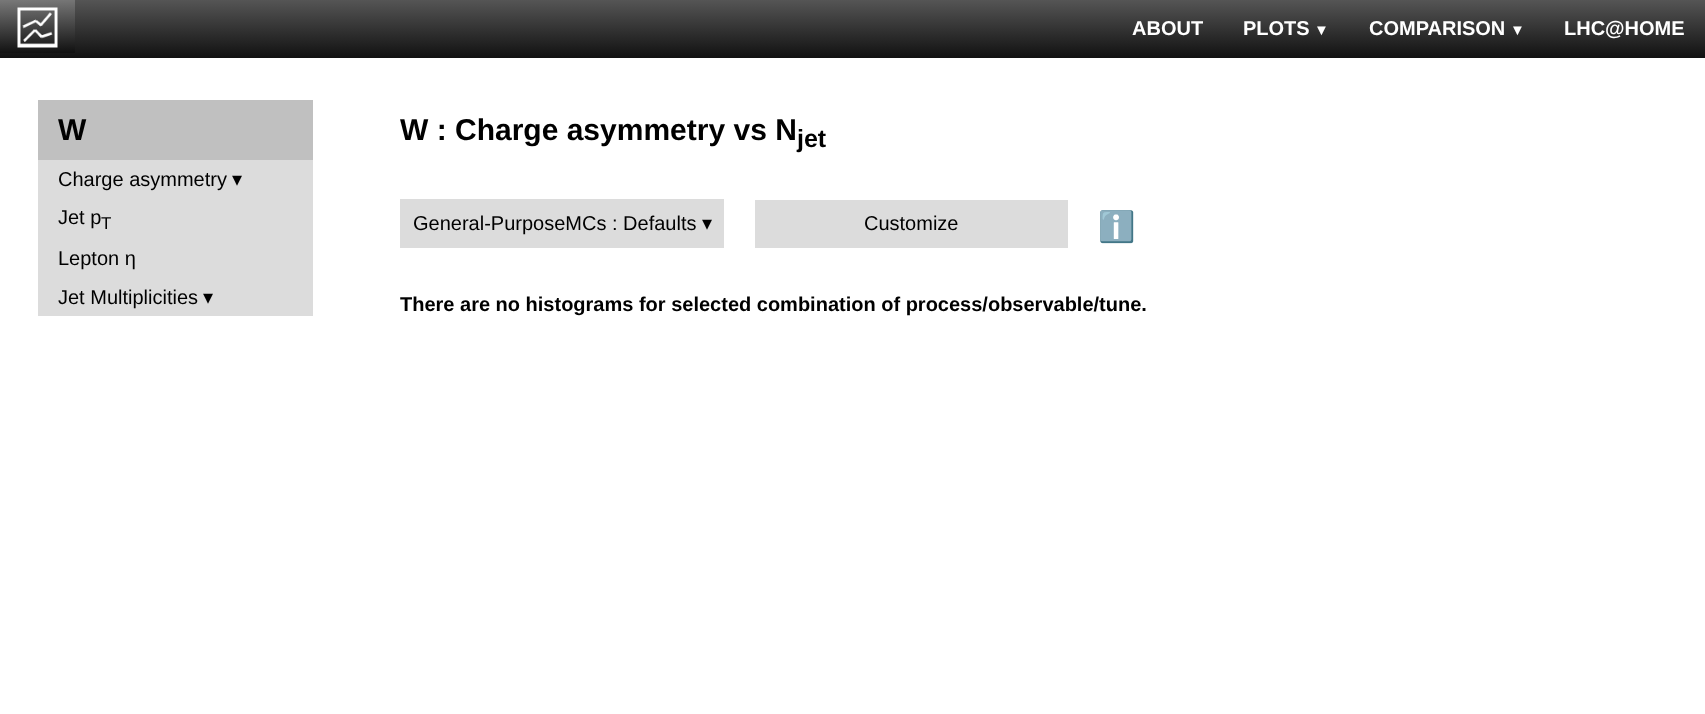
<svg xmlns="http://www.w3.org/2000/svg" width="1705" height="714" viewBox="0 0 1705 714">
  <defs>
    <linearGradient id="g1" gradientUnits="userSpaceOnUse" x1="853" y1="0" x2="853" y2="58"><stop offset="0" stop-color="#555555"/><stop offset="1" stop-color="#111111"/></linearGradient>
    <linearGradient id="g2" gradientUnits="userSpaceOnUse" x1="37" y1="0" x2="38" y2="53"><stop offset="0" stop-color="#777777"/><stop offset="1" stop-color="#111111"/></linearGradient>
  </defs>
  <rect width="100%" height="100%" fill="#ffffff"/>
  <rect x="0" y="0" width="1705" height="58" fill="url(#g1)"/>
  <rect x="0" y="0" width="75" height="53" fill="url(#g2)"/>
  <image x="17" y="7" width="41" height="41" href="img1.png"/>
  <text x="1132" y="35" font-family="Liberation Sans" font-size="20" font-weight="bold" fill="#ffffff">ABOUT</text>
  <text x="1243" y="35" font-family="Liberation Sans" font-size="20" font-weight="bold" fill="#ffffff">PLOTS</text>
  <text x="1314" y="35" font-family="Liberation Sans" font-size="15" font-weight="bold" fill="#ffffff">▼</text>
  <text x="1369" y="35" font-family="Liberation Sans" font-size="20" font-weight="bold" fill="#ffffff">COMPARISON</text>
  <text x="1510" y="35" font-family="Liberation Sans" font-size="15" font-weight="bold" fill="#ffffff">▼</text>
  <text x="1564" y="35" font-family="Liberation Sans" font-size="20" font-weight="bold" fill="#ffffff">LHC@HOME</text>
  <rect x="38" y="100" width="275" height="60" fill="#c0c0c0"/>
  <text x="58" y="140" font-family="Liberation Sans" font-size="30" font-weight="bold" fill="#000000">W</text>
  <rect x="38" y="160" width="275" height="156" fill="#dcdcdc"/>
  <text x="58" y="186" font-family="Liberation Sans" font-size="20" fill="#000000">Charge asymmetry</text>
  <text x="232" y="186" font-family="DejaVu Sans" font-size="20" fill="#000000">▾</text>
  <text x="58" y="224" font-family="Liberation Sans" font-size="20" fill="#000000">Jet p</text>
  <text x="101" y="229" font-family="Liberation Sans" font-size="17" fill="#000000">T</text>
  <text x="58" y="265" font-family="Liberation Sans" font-size="20" fill="#000000">Lepton η</text>
  <text x="58" y="304" font-family="Liberation Sans" font-size="20" fill="#000000">Jet Multiplicities</text>
  <text x="203" y="304" font-family="DejaVu Sans" font-size="20" fill="#000000">▾</text>
  <text x="400" y="140" font-family="Liberation Sans" font-size="30" font-weight="bold" fill="#000000">W : Charge asymmetry vs N</text>
  <text x="797" y="147" font-family="Liberation Sans" font-size="25" font-weight="bold" fill="#000000">jet</text>
  <rect x="400" y="199" width="324" height="49" fill="#dcdcdc"/>
  <text x="413" y="230" font-family="Liberation Sans" font-size="20" fill="#000000">General-PurposeMCs : Defaults</text>
  <text x="702" y="230" font-family="DejaVu Sans" font-size="20" fill="#000000">▾</text>
  <rect x="755" y="200" width="313" height="48" fill="#dcdcdc"/>
  <text x="864" y="230" font-family="Liberation Sans" font-size="20" fill="#000000">Customize</text>
  <text x="1098" y="237" font-family="Noto Color Emoji" font-size="30" fill="#000000">ℹ️</text>
  <text x="400" y="311" font-family="Liberation Sans" font-size="20" font-weight="bold" fill="#000000">There are no histograms for selected combination of process/observable/tune.</text>
</svg>
